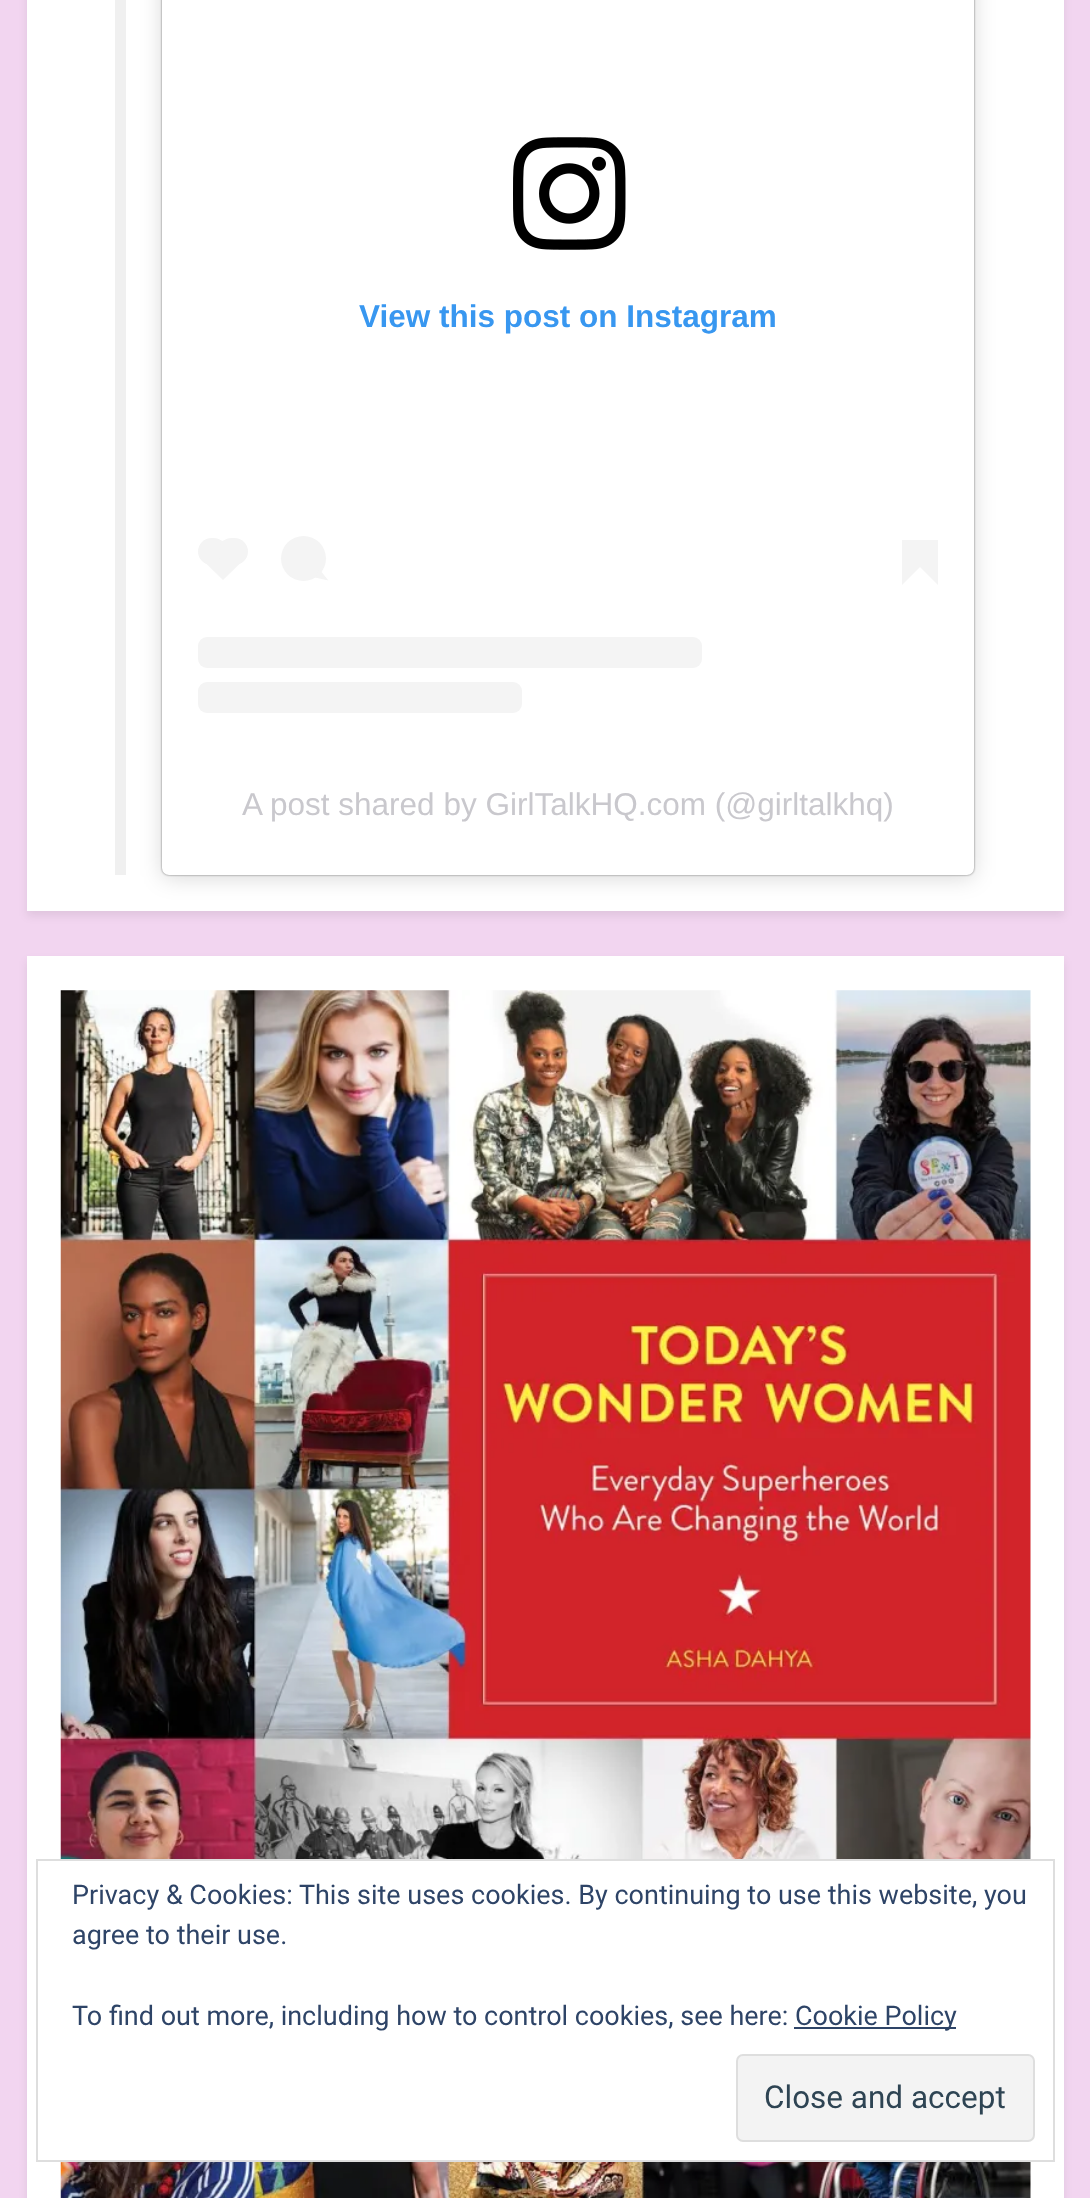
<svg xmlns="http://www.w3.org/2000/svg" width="1090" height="2198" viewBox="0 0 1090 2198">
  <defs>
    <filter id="blur1" x="-50%" y="-200%" width="200%" height="500%"><feGaussianBlur stdDeviation="4.5"/></filter>
    <filter id="blur2" x="-50%" y="-200%" width="200%" height="500%"><feGaussianBlur stdDeviation="11"/></filter>
    <filter id="blur3" x="-50%" y="-200%" width="200%" height="500%"><feGaussianBlur stdDeviation="1"/></filter>
  </defs>
  <rect width="100%" height="100%" fill="#f2d5f0"/>
  <rect x="27" y="-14" width="1037" height="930" fill="#000000" fill-opacity="0.08" filter="url(#blur1)"/>
  <rect x="27" y="0" width="1037" height="911" fill="#ffffff"/>
  <rect x="115" y="0" width="11" height="875" fill="#f0f0f0"/>
  <rect x="162" y="-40" width="812" height="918" rx="7" fill="#000000" fill-opacity="0.15" filter="url(#blur2)"/>
  <rect x="162" y="-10" width="812" height="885" rx="7" fill="#000000" fill-opacity="0.5" filter="url(#blur3)"/>
  <rect x="162" y="-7" width="812" height="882" rx="7" fill="#ffffff"/>
  <image x="513" y="137" width="113" height="113" href="img1.png"/>
  <text x="359" y="327" font-family="Liberation Sans" font-size="31.5" font-weight="bold" fill="#3897f0">View this post on Instagram</text>
  <rect x="198" y="538" width="29" height="27" rx="13.5" fill="#f4f4f4"/>
  <path d="M203 560.5L223 540.5L243 560.5L223 580Z" fill="#f4f4f4"/>
  <rect x="218" y="538" width="30" height="27" rx="13.5" fill="#f4f4f4"/>
  <circle cx="303.5" cy="558.5" r="22.5" fill="#f4f4f4"/>
  <path d="M315 577.5L319.5 569.5L328.5 580.5Z" fill="#f4f4f4"/>
  <rect x="902" y="540" width="36" height="27" fill="#f4f4f4"/>
  <path d="M902 567H920L902 585Z" fill="#f4f4f4"/>
  <path d="M920 567H938V585Z" fill="#f4f4f4"/>
  <rect x="198" y="637" width="504" height="31" rx="9" fill="#f4f4f4"/>
  <rect x="198" y="682" width="324" height="31" rx="9" fill="#f4f4f4"/>
  <text x="242" y="815" font-family="Liberation Sans" font-size="31.5" fill="#c9c8cd">A post shared by GirlTalkHQ.com (@girltalkhq)</text>
  <rect x="27" y="961" width="1037" height="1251" fill="#000000" fill-opacity="0.08" filter="url(#blur1)"/>
  <rect x="27" y="956" width="1037" height="1242" fill="#ffffff"/>
  <image x="60" y="990" width="971" height="1208" href="img2.png"/>
  <rect x="60" y="1861" width="971" height="299" fill="#ffffff"/>
  <rect x="37" y="1860" width="1017" height="301" fill="none" stroke="#dedede" stroke-width="2"/>
  <text x="72" y="1904" font-family="Roboto" font-size="27" fill="#2e4467">Privacy &amp; Cookies: This site uses cookies. By continuing to use this website, you</text>
  <text x="72" y="1944" font-family="Roboto" font-size="27" fill="#2e4467">agree to their use.</text>
  <text x="72" y="2025" font-family="Roboto" font-size="27" fill="#2e4467">To find out more, including how to control cookies, see here:</text>
  <rect x="794" y="2027" width="162" height="2" fill="#2e4467"/>
  <text x="795" y="2025" font-family="Roboto" font-size="27" fill="#2e4467">Cookie Policy</text>
  <rect x="737" y="2055" width="297" height="86" rx="6" fill="#f3f3f3" stroke="#dedede" stroke-width="2"/>
  <text x="764" y="2108" font-family="Roboto" font-size="31.5" fill="#2e4453">Close and accept</text>
</svg>
